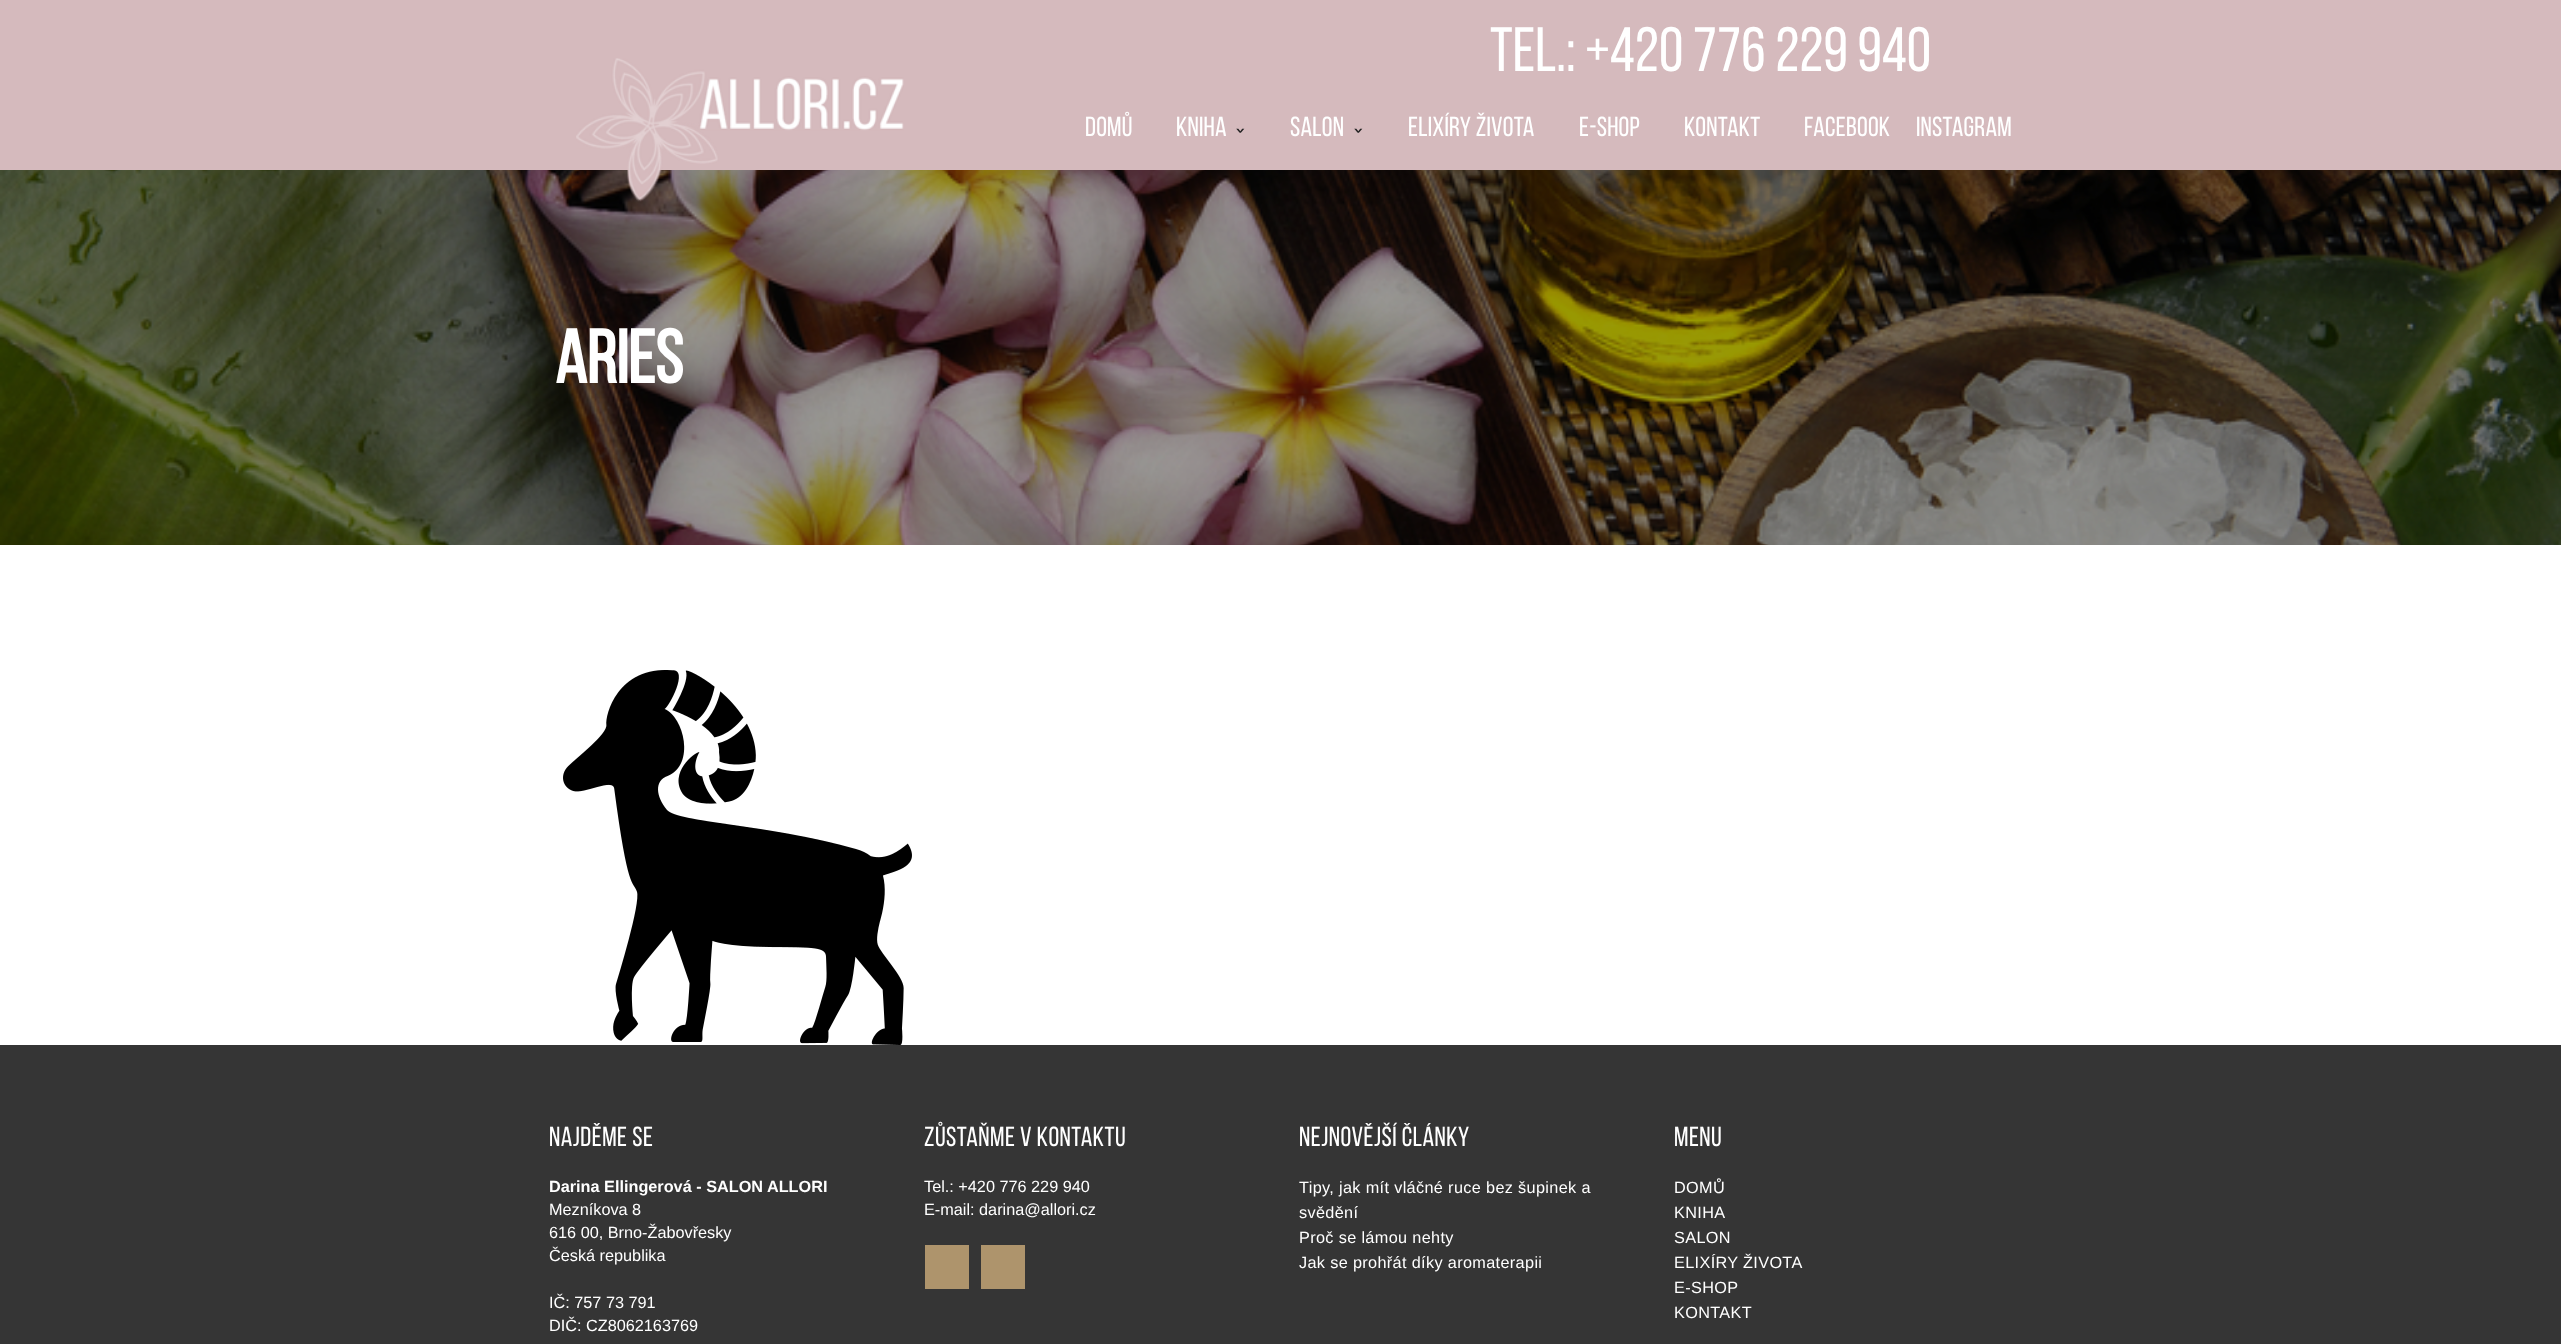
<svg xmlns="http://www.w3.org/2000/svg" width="2561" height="1344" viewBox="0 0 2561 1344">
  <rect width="100%" height="100%" fill="#d5babd"/>
  <image x="0" y="170" width="2561" height="375" href="img2.png"/>
  <image x="576" y="58" width="328" height="144" href="img1.png"/>
  <text x="1490" y="71" font-family="Bebas Neue" font-size="62.5" fill="#ffffff">TEL.: +420 776 229 940</text>
  <text x="1085" y="136" font-family="Bebas Neue" font-size="27.5" letter-spacing="0.25" fill="#ffffff">DOMŮ</text>
  <text x="1176" y="136" font-family="Bebas Neue" font-size="27.5" letter-spacing="0.25" fill="#ffffff">KNIHA</text>
  <text x="1235" y="125" transform="rotate(90 1235 125)" font-family="DejaVu Sans Mono" font-size="18" font-weight="bold" letter-spacing="0.25" fill="#222222">›</text>
  <text x="1290" y="136" font-family="Bebas Neue" font-size="27.5" letter-spacing="0.25" fill="#ffffff">SALON</text>
  <text x="1353" y="125" transform="rotate(90 1353 125)" font-family="DejaVu Sans Mono" font-size="18" font-weight="bold" letter-spacing="0.25" fill="#222222">›</text>
  <text x="1408" y="136" font-family="Bebas Neue" font-size="27.5" letter-spacing="0.25" fill="#ffffff">ELIXÍRY ŽIVOTA</text>
  <text x="1579" y="136" font-family="Bebas Neue" font-size="27.5" letter-spacing="0.25" fill="#ffffff">E-SHOP</text>
  <text x="1684" y="136" font-family="Bebas Neue" font-size="27.5" letter-spacing="0.25" fill="#ffffff">KONTAKT</text>
  <text x="1804" y="136" font-family="Bebas Neue" font-size="27.5" letter-spacing="0.25" fill="#ffffff">FACEBOOK</text>
  <text x="1916" y="136" font-family="Bebas Neue" font-size="27.5" letter-spacing="0.25" fill="#ffffff">INSTAGRAM</text>
  <rect x="0" y="545" width="2561" height="500" fill="#ffffff"/>
  <text x="555" y="383" font-family="Bebas Neue" font-size="75" font-weight="bold" fill="#ffffff">ARIES</text>
  <image x="563" y="670" width="349" height="375" href="img3.png"/>
  <rect x="0" y="1045" width="2561" height="299" fill="#353535"/>
  <text x="549" y="1146" font-family="Bebas Neue" font-size="27.5" letter-spacing="0.5" fill="#ffffff">NAJDĚME SE</text>
  <text x="549" y="1192" font-family="Liberation Sans" font-size="16.25" font-weight="bold" fill="#ffffff">Darina Ellingerová - SALON ALLORI</text>
  <text x="549" y="1215" font-family="Liberation Sans" font-size="16.25" fill="#ffffff">Mezníkova 8</text>
  <text x="549" y="1238" font-family="Liberation Sans" font-size="16.25" fill="#ffffff">616 00, Brno-Žabovřesky</text>
  <text x="549" y="1261" font-family="Liberation Sans" font-size="16.25" fill="#ffffff">Česká republika</text>
  <text x="549" y="1308" font-family="Liberation Sans" font-size="16.25" fill="#ffffff">IČ: 757 73 791</text>
  <text x="549" y="1331" font-family="Liberation Sans" font-size="16.25" fill="#ffffff">DIČ: CZ8062163769</text>
  <text x="924" y="1146" font-family="Bebas Neue" font-size="27.5" letter-spacing="0.5" fill="#ffffff">ZŮSTAŇME V KONTAKTU</text>
  <text x="924" y="1192" font-family="Liberation Sans" font-size="16.25" fill="#ffffff">Tel.: +420 776 229 940</text>
  <text x="924" y="1215" font-family="Liberation Sans" font-size="16.25" fill="#ffffff">E-mail: darina@allori.cz</text>
  <rect x="925" y="1245" width="44" height="44" fill="#ae946c"/>
  <rect x="981" y="1245" width="44" height="44" fill="#ae946c"/>
  <text x="1299" y="1146" font-family="Bebas Neue" font-size="27.5" letter-spacing="0.5" fill="#ffffff">NEJNOVĚJŠÍ ČLÁNKY</text>
  <text x="1299" y="1193" font-family="Liberation Sans" font-size="16.25" letter-spacing="0.35" fill="#ffffff">Tipy, jak mít vláčné ruce bez šupinek a</text>
  <text x="1299" y="1218" font-family="Liberation Sans" font-size="16.25" letter-spacing="0.35" fill="#ffffff">svědění</text>
  <text x="1299" y="1243" font-family="Liberation Sans" font-size="16.25" letter-spacing="0.35" fill="#ffffff">Proč se lámou nehty</text>
  <text x="1299" y="1268" font-family="Liberation Sans" font-size="16.25" letter-spacing="0.35" fill="#ffffff">Jak se prohřát díky aromaterapii</text>
  <text x="1674" y="1146" font-family="Bebas Neue" font-size="27.5" letter-spacing="0.5" fill="#ffffff">MENU</text>
  <text x="1674" y="1193" font-family="Liberation Sans" font-size="16.25" letter-spacing="0.35" fill="#ffffff">DOMŮ</text>
  <text x="1674" y="1218" font-family="Liberation Sans" font-size="16.25" letter-spacing="0.35" fill="#ffffff">KNIHA</text>
  <text x="1674" y="1243" font-family="Liberation Sans" font-size="16.25" letter-spacing="0.35" fill="#ffffff">SALON</text>
  <text x="1674" y="1268" font-family="Liberation Sans" font-size="16.25" letter-spacing="0.35" fill="#ffffff">ELIXÍRY ŽIVOTA</text>
  <text x="1674" y="1293" font-family="Liberation Sans" font-size="16.25" letter-spacing="0.35" fill="#ffffff">E-SHOP</text>
  <text x="1674" y="1318" font-family="Liberation Sans" font-size="16.25" letter-spacing="0.35" fill="#ffffff">KONTAKT</text>
</svg>
